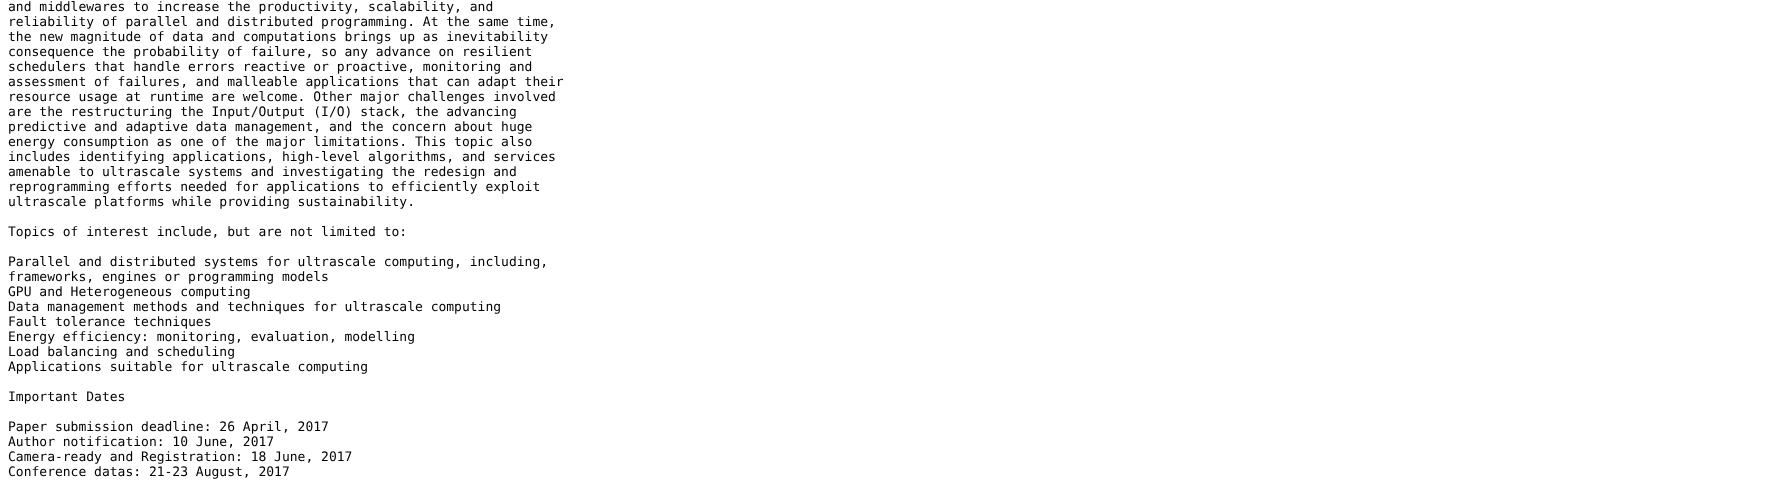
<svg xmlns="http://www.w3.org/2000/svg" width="1776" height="502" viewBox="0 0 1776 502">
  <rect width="100%" height="100%" fill="#ffffff"/>
  <text x="8" y="11" font-family="DejaVu Sans Mono" font-size="13" fill="#000000">and middlewares to increase the productivity, scalability, and</text>
  <text x="8" y="26" font-family="DejaVu Sans Mono" font-size="13" fill="#000000">reliability of parallel and distributed programming. At the same time,</text>
  <text x="8" y="41" font-family="DejaVu Sans Mono" font-size="13" fill="#000000">the new magnitude of data and computations brings up as inevitability</text>
  <text x="8" y="56" font-family="DejaVu Sans Mono" font-size="13" fill="#000000">consequence the probability of failure, so any advance on resilient</text>
  <text x="8" y="71" font-family="DejaVu Sans Mono" font-size="13" fill="#000000">schedulers that handle errors reactive or proactive, monitoring and</text>
  <text x="8" y="86" font-family="DejaVu Sans Mono" font-size="13" fill="#000000">assessment of failures, and malleable applications that can adapt their</text>
  <text x="8" y="101" font-family="DejaVu Sans Mono" font-size="13" fill="#000000">resource usage at runtime are welcome. Other major challenges involved</text>
  <text x="8" y="116" font-family="DejaVu Sans Mono" font-size="13" fill="#000000">are the restructuring the Input/Output (I/O) stack, the advancing</text>
  <text x="8" y="131" font-family="DejaVu Sans Mono" font-size="13" fill="#000000">predictive and adaptive data management, and the concern about huge</text>
  <text x="8" y="146" font-family="DejaVu Sans Mono" font-size="13" fill="#000000">energy consumption as one of the major limitations. This topic also</text>
  <text x="8" y="161" font-family="DejaVu Sans Mono" font-size="13" fill="#000000">includes identifying applications, high-level algorithms, and services</text>
  <text x="8" y="176" font-family="DejaVu Sans Mono" font-size="13" fill="#000000">amenable to ultrascale systems and investigating the redesign and</text>
  <text x="8" y="191" font-family="DejaVu Sans Mono" font-size="13" fill="#000000">reprogramming efforts needed for applications to efficiently exploit</text>
  <text x="8" y="206" font-family="DejaVu Sans Mono" font-size="13" fill="#000000">ultrascale platforms while providing sustainability.</text>
  <text x="8" y="236" font-family="DejaVu Sans Mono" font-size="13" fill="#000000">Topics of interest include, but are not limited to:</text>
  <text x="8" y="266" font-family="DejaVu Sans Mono" font-size="13" fill="#000000">Parallel and distributed systems for ultrascale computing, including,</text>
  <text x="8" y="281" font-family="DejaVu Sans Mono" font-size="13" fill="#000000">frameworks, engines or programming models</text>
  <text x="8" y="296" font-family="DejaVu Sans Mono" font-size="13" fill="#000000">GPU and Heterogeneous computing</text>
  <text x="8" y="311" font-family="DejaVu Sans Mono" font-size="13" fill="#000000">Data management methods and techniques for ultrascale computing</text>
  <text x="8" y="326" font-family="DejaVu Sans Mono" font-size="13" fill="#000000">Fault tolerance techniques</text>
  <text x="8" y="341" font-family="DejaVu Sans Mono" font-size="13" fill="#000000">Energy efficiency: monitoring, evaluation, modelling</text>
  <text x="8" y="356" font-family="DejaVu Sans Mono" font-size="13" fill="#000000">Load balancing and scheduling</text>
  <text x="8" y="371" font-family="DejaVu Sans Mono" font-size="13" fill="#000000">Applications suitable for ultrascale computing</text>
  <text x="8" y="401" font-family="DejaVu Sans Mono" font-size="13" fill="#000000">Important Dates</text>
  <text x="8" y="431" font-family="DejaVu Sans Mono" font-size="13" fill="#000000">Paper submission deadline: 26 April, 2017</text>
  <text x="8" y="446" font-family="DejaVu Sans Mono" font-size="13" fill="#000000">Author notification: 10 June, 2017</text>
  <text x="8" y="461" font-family="DejaVu Sans Mono" font-size="13" fill="#000000">Camera-ready and Registration: 18 June, 2017</text>
  <text x="8" y="476" font-family="DejaVu Sans Mono" font-size="13" fill="#000000">Conference datas: 21-23 August, 2017</text>
</svg>
